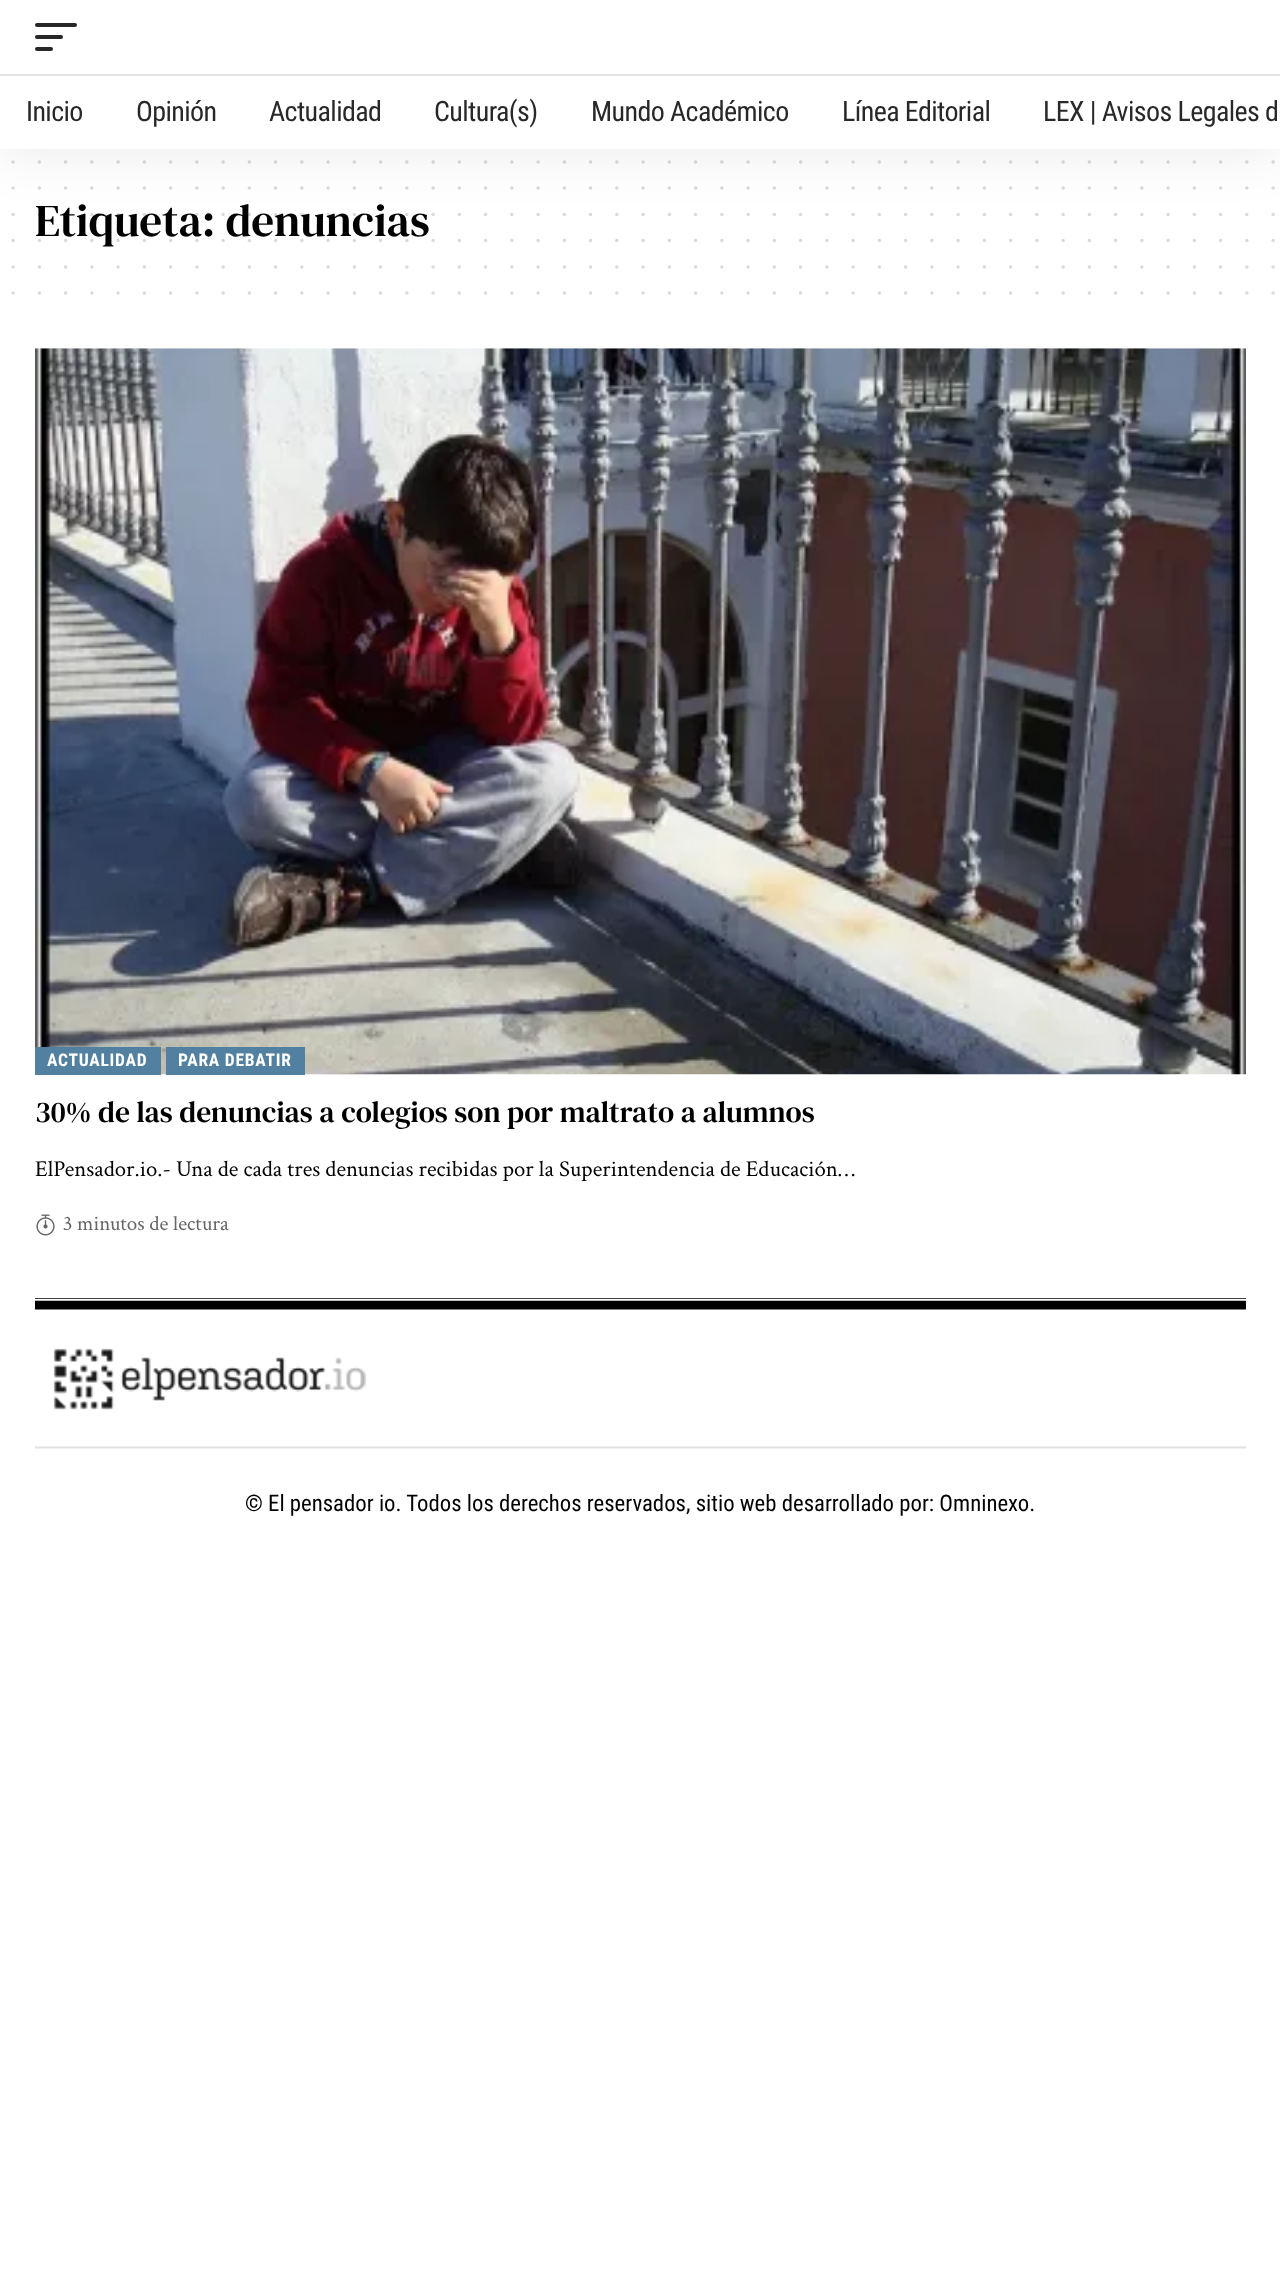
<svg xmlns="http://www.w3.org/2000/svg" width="1280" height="2290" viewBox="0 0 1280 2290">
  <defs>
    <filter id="blur1" x="-50%" y="-200%" width="200%" height="500%"><feGaussianBlur stdDeviation="26"/></filter>
  </defs>
  <rect width="100%" height="100%" fill="#ffffff"/>
  <rect x="35" y="1448" width="1211" height="1" fill="#f0f0f0"/>
  <path d="M13.1 161.9H1273.5" fill="none" stroke="#d9d9d9" stroke-width="3.5" stroke-linecap="round" stroke-dasharray="0 26.25"/>
  <path d="M13.1 188.1H1273.5" fill="none" stroke="#d9d9d9" stroke-width="3.5" stroke-linecap="round" stroke-dasharray="0 26.25"/>
  <text x="35" y="236" font-family="DM Serif Text" font-size="45.5" fill="#000000">Etiqueta: denuncias</text>
  <path d="M13.1 214.4H1273.5" fill="none" stroke="#000000" stroke-opacity="0.15" stroke-width="3.5" stroke-linecap="round" stroke-dasharray="0 26.25"/>
  <rect x="0" y="7" width="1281" height="149" fill="#000000" fill-opacity="0.07" filter="url(#blur1)"/>
  <rect x="0" y="0" width="1280" height="149" fill="#ffffff"/>
  <rect x="35" y="23" width="42" height="4" rx="2" fill="#282828"/>
  <rect x="35" y="35" width="28" height="4" rx="2" fill="#282828"/>
  <rect x="35" y="47" width="18" height="4" rx="2" fill="#282828"/>
  <rect x="0" y="74" width="1280" height="2" fill="#e4e4e4"/>
  <text x="26" y="121" font-family="Roboto Condensed" font-size="28" letter-spacing="-0.6" fill="#282828">Inicio</text>
  <text x="136" y="121" font-family="Roboto Condensed" font-size="28" letter-spacing="-0.6" fill="#282828">Opinión</text>
  <text x="269" y="121" font-family="Roboto Condensed" font-size="28" letter-spacing="-0.6" fill="#282828">Actualidad</text>
  <text x="434" y="121" font-family="Roboto Condensed" font-size="28" letter-spacing="-0.6" fill="#282828">Cultura(s)</text>
  <text x="591" y="121" font-family="Roboto Condensed" font-size="28" letter-spacing="-0.6" fill="#282828">Mundo Académico</text>
  <text x="842" y="121" font-family="Roboto Condensed" font-size="28" letter-spacing="-0.6" fill="#282828">Línea Editorial</text>
  <text x="1043" y="121" font-family="Roboto Condensed" font-size="28" letter-spacing="-0.6" fill="#282828">LEX | Avisos Legales d</text>
  <path d="M13.1 240.6H1273.5" fill="none" stroke="#d9d9d9" stroke-width="3.5" stroke-linecap="round" stroke-dasharray="0 26.25"/>
  <path d="M13.1 266.9H1273.5" fill="none" stroke="#d9d9d9" stroke-width="3.5" stroke-linecap="round" stroke-dasharray="0 26.25"/>
  <path d="M13.1 293.1H1273.5" fill="none" stroke="#d9d9d9" stroke-width="3.5" stroke-linecap="round" stroke-dasharray="0 26.25"/>
  <image x="35" y="348" width="1211" height="727" href="img1.png"/>
  <rect x="35" y="1047" width="126" height="28" fill="#5280a0"/>
  <text x="47" y="1066" font-family="Roboto Condensed" font-size="17.5" font-weight="bold" letter-spacing="0.75" fill="#ffffff">ACTUALIDAD</text>
  <rect x="166" y="1047" width="139" height="28" fill="#5280a0"/>
  <text x="178" y="1066" font-family="Roboto Condensed" font-size="17.5" font-weight="bold" letter-spacing="0.75" fill="#ffffff">PARA DEBATIR</text>
  <text x="35" y="1122" font-family="DM Serif Text" font-size="29.75" fill="#000000">30% de las denuncias a colegios son por maltrato a alumnos</text>
  <text x="35" y="1176" font-family="Crimson Text" font-size="22.75" fill="#000000">ElPensador.io.- Una de cada tres denuncias recibidas por la Superintendencia de Educación…</text>
  <image x="36" y="1214" width="19" height="22" href="img2.png"/>
  <text x="63" y="1230" font-family="Crimson Text" font-size="21" fill="#666666">3 minutos de lectura</text>
  <image x="35" y="1298" width="1211" height="12" href="img3.png"/>
  <image x="53" y="1348" width="314" height="62" href="img4.png"/>
  <rect x="35" y="1446" width="1211" height="1" fill="#efefef"/>
  <rect x="35" y="1447" width="1211" height="1" fill="#e2e2e2"/>
  <text x="245" y="1511" font-family="Roboto Condensed" font-size="22.75" fill="#000000">© El pensador io. Todos los derechos reservados, sitio web desarrollado por: Omninexo.</text>
</svg>
